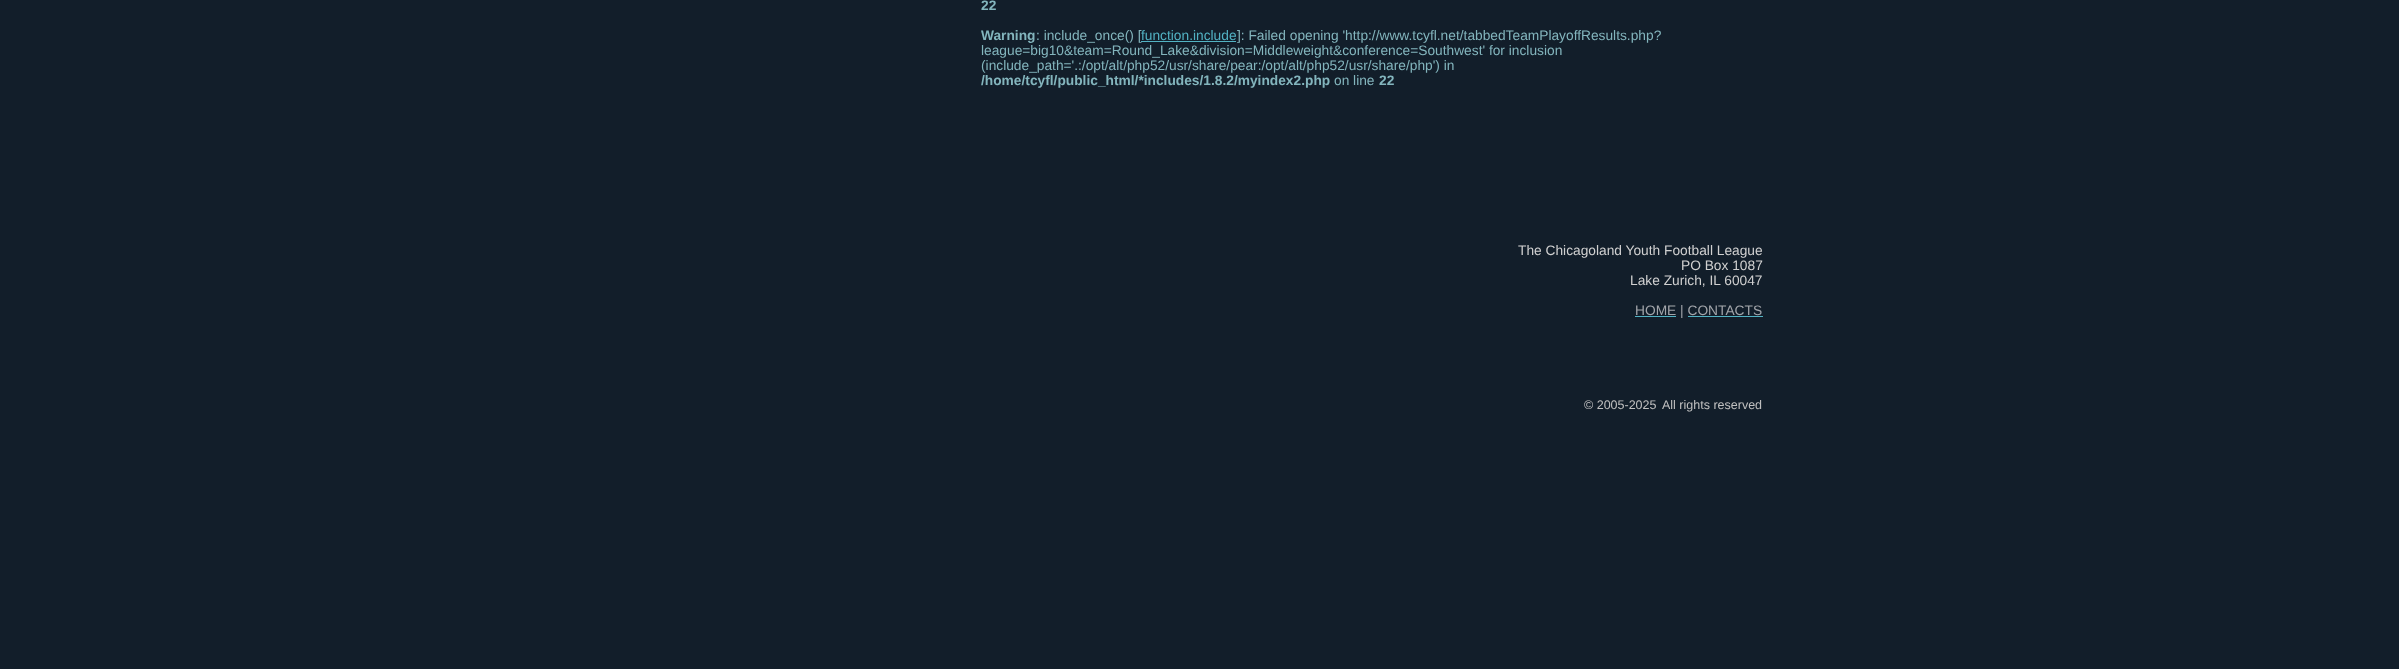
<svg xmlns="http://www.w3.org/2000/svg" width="2399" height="669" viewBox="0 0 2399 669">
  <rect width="100%" height="100%" fill="#121e2a"/>
  <text x="981" y="10" font-family="Liberation Sans" font-size="13.75" font-weight="bold" fill="#83b5bd">22</text>
  <text x="981" y="40" font-family="Liberation Sans" font-size="13.75" font-weight="bold" fill="#83b5bd">Warning</text>
  <text x="1036" y="40" font-family="Liberation Sans" font-size="13.75" fill="#83b5bd">: include_once() [</text>
  <text x="1141" y="40" font-family="Liberation Sans" font-size="13.75" fill="#52b2c3">function.include</text>
  <rect x="1141" y="41" width="95" height="1" fill="#52b2c3"/>
  <text x="1237" y="40" font-family="Liberation Sans" font-size="13.75" fill="#83b5bd">]: Failed opening 'http://www.tcyfl.net/tabbedTeamPlayoffResults.php?</text>
  <text x="981" y="55" font-family="Liberation Sans" font-size="13.75" fill="#83b5bd">league=big10&amp;team=Round_Lake&amp;division=Middleweight&amp;conference=Southwest' for inclusion</text>
  <text x="981" y="70" font-family="Liberation Sans" font-size="13.75" fill="#83b5bd">(include_path='.:/opt/alt/php52/usr/share/pear:/opt/alt/php52/usr/share/php') in</text>
  <text x="981" y="85" font-family="Liberation Sans" font-size="13.75" font-weight="bold" fill="#83b5bd">/home/tcyfl/public_html/*includes/1.8.2/myindex2.php</text>
  <text x="1334" y="85" font-family="Liberation Sans" font-size="13.75" fill="#83b5bd">on line</text>
  <text x="1379" y="85" font-family="Liberation Sans" font-size="13.75" font-weight="bold" fill="#83b5bd">22</text>
  <text x="1518" y="255" font-family="Liberation Sans" font-size="13.75" fill="#d0d0d0">The Chicagoland Youth Football League</text>
  <text x="1681" y="270" font-family="Liberation Sans" font-size="13.75" fill="#d0d0d0">PO Box 1087</text>
  <text x="1630" y="285" font-family="Liberation Sans" font-size="13.75" fill="#d0d0d0">Lake Zurich, IL 60047</text>
  <rect x="1635" y="316" width="41" height="1" fill="#52b2c3"/>
  <text x="1635" y="315" font-family="Liberation Sans" font-size="13.75" fill="#a2a5aa">HOME | CONTACTS</text>
  <rect x="1688" y="316" width="75" height="1" fill="#52b2c3"/>
  <text x="1584" y="409" font-family="Liberation Sans" font-size="12.5" fill="#c0c0c0">© 2005-2025</text>
  <text x="1662" y="409" font-family="Liberation Sans" font-size="12.5" fill="#c0c0c0">All rights reserved</text>
</svg>
